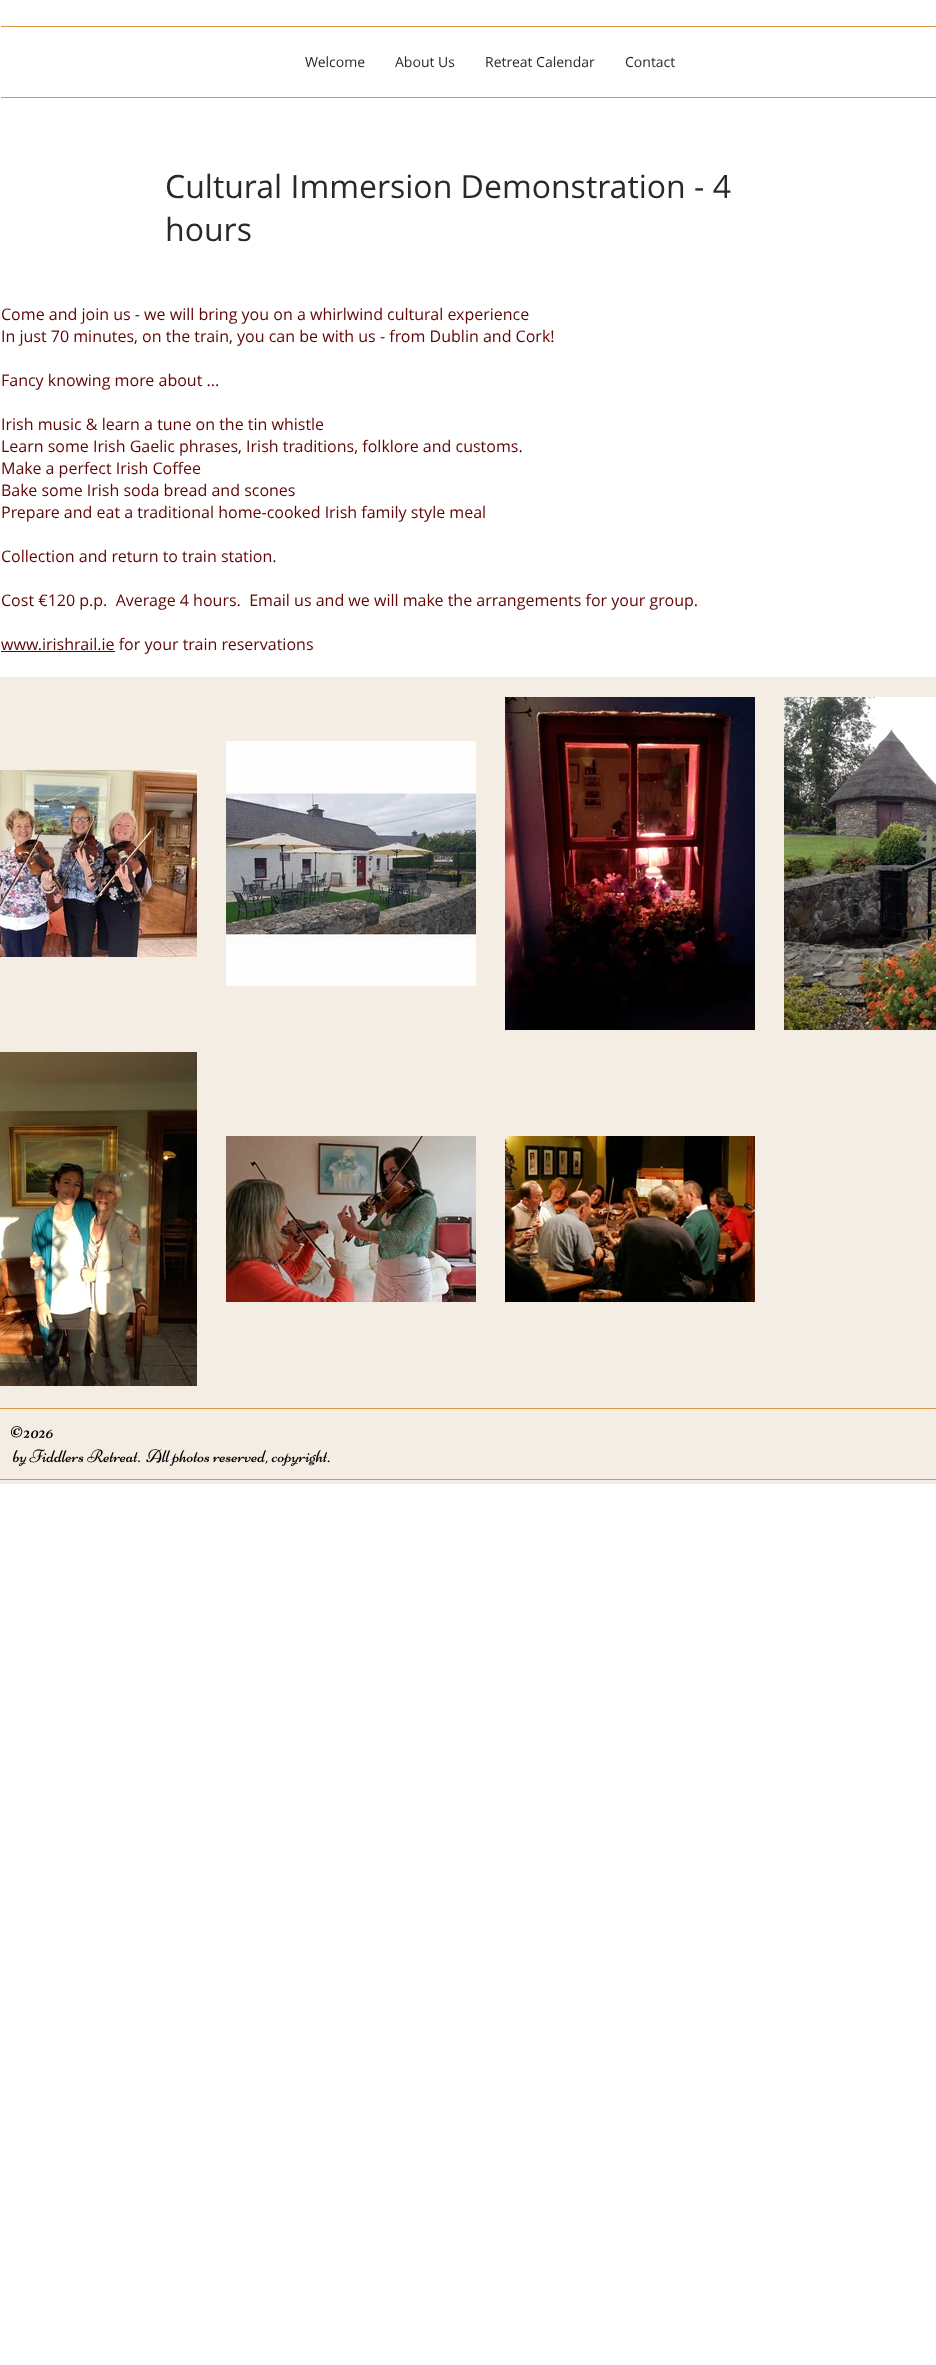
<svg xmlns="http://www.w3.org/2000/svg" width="936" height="2365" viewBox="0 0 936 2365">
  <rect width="100%" height="100%" fill="#ffffff"/>
  <rect x="1" y="26" width="935" height="1" fill="#dd974b"/>
  <rect x="1" y="97" width="935" height="1" fill="#dd974b"/>
  <text x="305" y="67" font-family="Open Sans" font-size="14" fill="#2b272a">Welcome</text>
  <text x="395" y="67" font-family="Open Sans" font-size="14" fill="#2b272a">About Us</text>
  <text x="485" y="67" font-family="Open Sans" font-size="14" fill="#2b272a">Retreat Calendar</text>
  <text x="625" y="67" font-family="Open Sans" font-size="14" fill="#2b272a">Contact</text>
  <text x="165" y="198" font-family="Open Sans" font-size="32" fill="#2b272a">Cultural Immersion Demonstration - 4</text>
  <text x="165" y="241" font-family="Open Sans" font-size="32" fill="#2b272a">hours</text>
  <text x="1" y="320" font-family="Open Sans" font-size="16" fill="#600505">Come and join us - we will bring you on a whirlwind cultural experience</text>
  <text x="1" y="342" font-family="Open Sans" font-size="16" fill="#600505">In just 70 minutes, on the train, you can be with us - from Dublin and Cork!</text>
  <text x="1" y="386" font-family="Open Sans" font-size="16" fill="#600505">Fancy knowing more about ...</text>
  <text x="1" y="430" font-family="Open Sans" font-size="16" fill="#600505">Irish music &amp; learn a tune on the tin whistle</text>
  <text x="1" y="452" font-family="Open Sans" font-size="16" fill="#600505">Learn some Irish Gaelic phrases, Irish traditions, folklore and customs.</text>
  <text x="1" y="474" font-family="Open Sans" font-size="16" fill="#600505">Make a perfect Irish Coffee</text>
  <text x="1" y="496" font-family="Open Sans" font-size="16" fill="#600505">Bake some Irish soda bread and scones</text>
  <text x="1" y="518" font-family="Open Sans" font-size="16" fill="#600505">Prepare and eat a traditional home-cooked Irish family style meal</text>
  <text x="1" y="562" font-family="Open Sans" font-size="16" fill="#600505">Collection and return to train station.</text>
  <text x="1" y="606" font-family="Open Sans" font-size="16" fill="#600505" xml:space="preserve">Cost €120 p.p.  Average 4 hours.  Email us and we will make the arrangements for your group.</text>
  <rect x="1" y="651" width="114" height="1" fill="#600505"/>
  <text x="1" y="650" font-family="Open Sans" font-size="16" fill="#600505">www.irishrail.ie for your train reservations</text>
  <rect x="0" y="677" width="936" height="807" fill="#f3ede4"/>
  <image x="0" y="770" width="197" height="187" href="img1.png"/>
  <image x="226" y="741" width="250" height="245" href="img2.png"/>
  <image x="505" y="697" width="250" height="333" href="img3.png"/>
  <image x="784" y="697" width="152" height="333" href="img4.png"/>
  <image x="0" y="1052" width="197" height="334" href="img5.png"/>
  <image x="226" y="1136" width="250" height="166" href="img6.png"/>
  <image x="505" y="1136" width="250" height="166" href="img7.png"/>
  <rect x="0" y="1408" width="936" height="1" fill="#dd974b"/>
  <image x="10" y="1426" width="43" height="13" href="img8.png"/>
  <image x="12" y="1449" width="318" height="17" href="img9.png"/>
  <rect x="0" y="1479" width="936" height="1" fill="#dd974b"/>
</svg>
